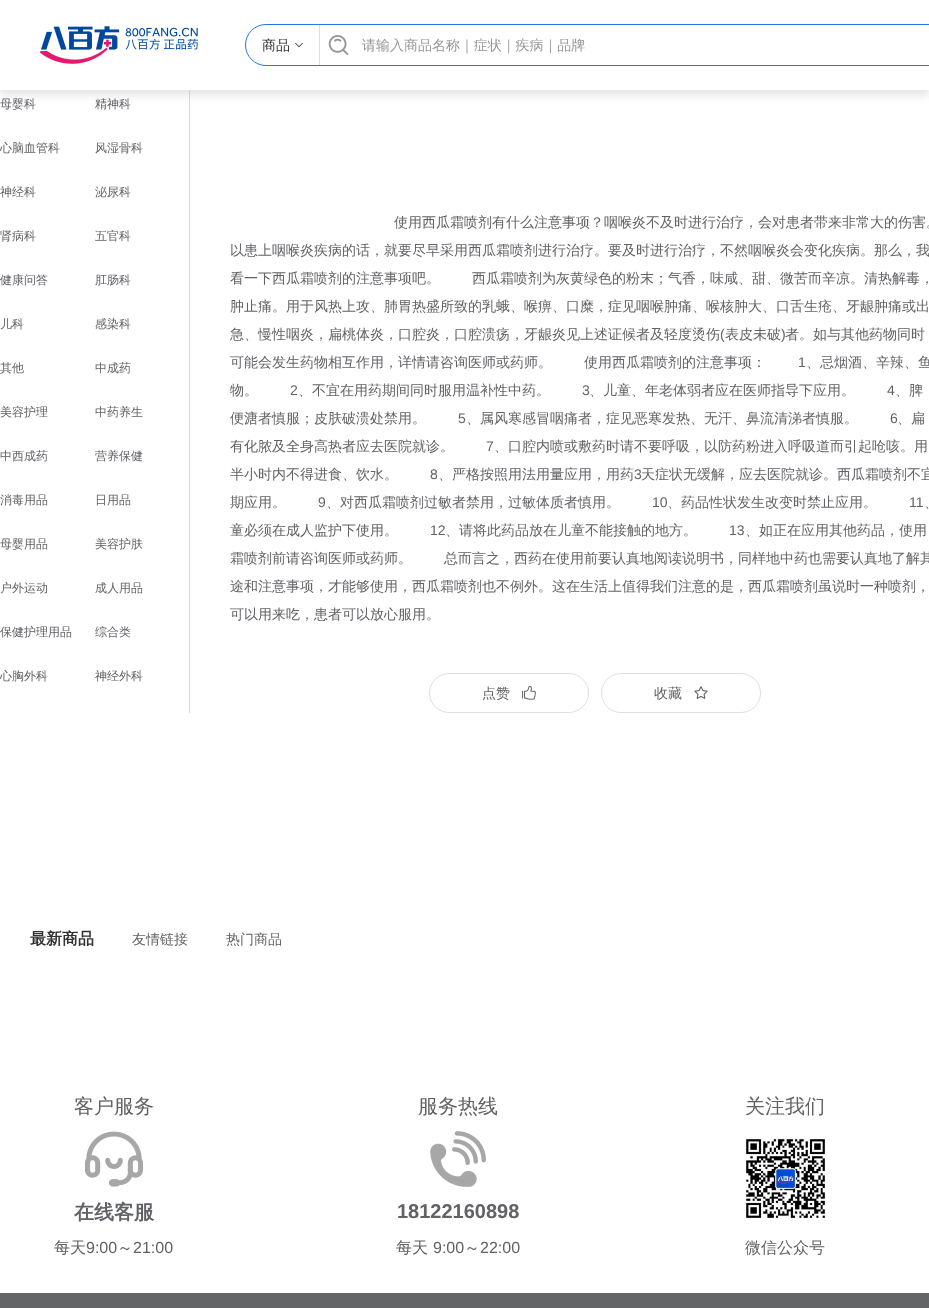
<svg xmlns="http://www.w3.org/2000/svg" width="929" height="1308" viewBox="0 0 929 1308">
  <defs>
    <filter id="blur1" x="-50%" y="-200%" width="200%" height="500%"><feGaussianBlur stdDeviation="5"/></filter>
  </defs>
  <rect width="100%" height="100%" fill="#ffffff"/>
  <rect x="189" y="90" width="1" height="623" fill="#dcdcdc"/>
  <rect x="0" y="5" width="929" height="90" fill="#000000" fill-opacity="0.11" filter="url(#blur1)"/>
  <rect x="0" y="0" width="929" height="90" fill="#ffffff"/>
  <image x="40" y="26" width="158" height="38" href="img1.png"/>
  <rect x="245.5" y="24.5" width="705" height="41" rx="20.5" fill="none" stroke="#2377eb"/>
  <rect x="319" y="25" width="1" height="40" fill="#dcdee0"/>
  <text x="262" y="50" font-family="WenQuanYi Zen Hei" font-size="14" font-weight="500" fill="#323233">商品</text>
  <image x="295" y="43" width="8" height="4" href="img2.png"/>
  <image x="328" y="35" width="21" height="20" href="img3.png"/>
  <text x="362" y="50" font-family="WenQuanYi Zen Hei" font-size="14" font-weight="500" fill="#969799">请输入商品名称｜症状｜疾病｜品牌</text>
  <text x="0" y="108" font-family="WenQuanYi Zen Hei" font-size="12" font-weight="500" fill="#606266">母婴科</text>
  <text x="95" y="108" font-family="WenQuanYi Zen Hei" font-size="12" font-weight="500" fill="#606266">精神科</text>
  <text x="0" y="152" font-family="WenQuanYi Zen Hei" font-size="12" font-weight="500" fill="#606266">心脑血管科</text>
  <text x="95" y="152" font-family="WenQuanYi Zen Hei" font-size="12" font-weight="500" fill="#606266">风湿骨科</text>
  <text x="0" y="196" font-family="WenQuanYi Zen Hei" font-size="12" font-weight="500" fill="#606266">神经科</text>
  <text x="95" y="196" font-family="WenQuanYi Zen Hei" font-size="12" font-weight="500" fill="#606266">泌尿科</text>
  <text x="0" y="240" font-family="WenQuanYi Zen Hei" font-size="12" font-weight="500" fill="#606266">肾病科</text>
  <text x="95" y="240" font-family="WenQuanYi Zen Hei" font-size="12" font-weight="500" fill="#606266">五官科</text>
  <text x="0" y="284" font-family="WenQuanYi Zen Hei" font-size="12" font-weight="500" fill="#606266">健康问答</text>
  <text x="95" y="284" font-family="WenQuanYi Zen Hei" font-size="12" font-weight="500" fill="#606266">肛肠科</text>
  <text x="0" y="328" font-family="WenQuanYi Zen Hei" font-size="12" font-weight="500" fill="#606266">儿科</text>
  <text x="95" y="328" font-family="WenQuanYi Zen Hei" font-size="12" font-weight="500" fill="#606266">感染科</text>
  <text x="0" y="372" font-family="WenQuanYi Zen Hei" font-size="12" font-weight="500" fill="#606266">其他</text>
  <text x="95" y="372" font-family="WenQuanYi Zen Hei" font-size="12" font-weight="500" fill="#606266">中成药</text>
  <text x="0" y="416" font-family="WenQuanYi Zen Hei" font-size="12" font-weight="500" fill="#606266">美容护理</text>
  <text x="95" y="416" font-family="WenQuanYi Zen Hei" font-size="12" font-weight="500" fill="#606266">中药养生</text>
  <text x="0" y="460" font-family="WenQuanYi Zen Hei" font-size="12" font-weight="500" fill="#606266">中西成药</text>
  <text x="95" y="460" font-family="WenQuanYi Zen Hei" font-size="12" font-weight="500" fill="#606266">营养保健</text>
  <text x="0" y="504" font-family="WenQuanYi Zen Hei" font-size="12" font-weight="500" fill="#606266">消毒用品</text>
  <text x="95" y="504" font-family="WenQuanYi Zen Hei" font-size="12" font-weight="500" fill="#606266">日用品</text>
  <text x="0" y="548" font-family="WenQuanYi Zen Hei" font-size="12" font-weight="500" fill="#606266">母婴用品</text>
  <text x="95" y="548" font-family="WenQuanYi Zen Hei" font-size="12" font-weight="500" fill="#606266">美容护肤</text>
  <text x="0" y="592" font-family="WenQuanYi Zen Hei" font-size="12" font-weight="500" fill="#606266">户外运动</text>
  <text x="95" y="592" font-family="WenQuanYi Zen Hei" font-size="12" font-weight="500" fill="#606266">成人用品</text>
  <text x="0" y="636" font-family="WenQuanYi Zen Hei" font-size="12" font-weight="500" fill="#606266">保健护理用品</text>
  <text x="95" y="636" font-family="WenQuanYi Zen Hei" font-size="12" font-weight="500" fill="#606266">综合类</text>
  <text x="0" y="680" font-family="WenQuanYi Zen Hei" font-size="12" font-weight="500" fill="#606266">心胸外科</text>
  <text x="95" y="680" font-family="WenQuanYi Zen Hei" font-size="12" font-weight="500" fill="#606266">神经外科</text>
  <text x="394" y="227" font-family="WenQuanYi Zen Hei" font-size="14" font-weight="500" fill="#606266">使用西瓜霜喷剂有什么注意事项？咽喉炎不及时进行治疗，会对患者带来非常大的伤害。</text>
  <text x="230" y="255" font-family="WenQuanYi Zen Hei" font-size="14" font-weight="500" fill="#606266">以患上咽喉炎疾病的话，就要尽早采用西瓜霜喷剂进行治疗。要及时进行治疗，不然咽喉炎会变化疾病。那么，我</text>
  <text x="230" y="283" font-family="WenQuanYi Zen Hei" font-size="14" font-weight="500" fill="#606266">看一下西瓜霜喷剂的注意事项吧。</text>
  <text x="472" y="283" font-family="WenQuanYi Zen Hei" font-size="14" font-weight="500" fill="#606266">西瓜霜喷剂为灰黄绿色的粉末；气香，味咸、甜、微苦而辛凉。清热解毒，</text>
  <text x="230" y="311" font-family="WenQuanYi Zen Hei" font-size="14" font-weight="500" fill="#606266">肿止痛。用于风热上攻、肺胃热盛所致的乳蛾、喉痹、口糜，症见咽喉肿痛、喉核肿大、口舌生疮、牙龈肿痛或出</text>
  <text x="230" y="339" font-family="WenQuanYi Zen Hei" font-size="14" font-weight="500" fill="#606266">急、慢性咽炎，扁桃体炎，口腔炎，口腔溃疡，牙龈炎见上述证候者及轻度烫伤</text>
  <text x="720" y="339" font-family="Liberation Sans" font-size="14" fill="#606266">(</text>
  <text x="725" y="339" font-family="WenQuanYi Zen Hei" font-size="14" font-weight="500" fill="#606266">表皮未破</text>
  <text x="781" y="339" font-family="Liberation Sans" font-size="14" fill="#606266">)</text>
  <text x="785" y="339" font-family="WenQuanYi Zen Hei" font-size="14" font-weight="500" fill="#606266">者。如与其他药物同时</text>
  <text x="230" y="367" font-family="WenQuanYi Zen Hei" font-size="14" font-weight="500" fill="#606266">可能会发生药物相互作用，详情请咨询医师或药师。</text>
  <text x="584" y="367" font-family="WenQuanYi Zen Hei" font-size="14" font-weight="500" fill="#606266">使用西瓜霜喷剂的注意事项：</text>
  <text x="798" y="367" font-family="Liberation Sans" font-size="14" fill="#606266">1</text>
  <text x="806" y="367" font-family="WenQuanYi Zen Hei" font-size="14" font-weight="500" fill="#606266">、忌烟酒、辛辣、鱼</text>
  <text x="230" y="395" font-family="WenQuanYi Zen Hei" font-size="14" font-weight="500" fill="#606266">物。</text>
  <text x="290" y="395" font-family="Liberation Sans" font-size="14" fill="#606266">2</text>
  <text x="298" y="395" font-family="WenQuanYi Zen Hei" font-size="14" font-weight="500" fill="#606266">、不宜在用药期间同时服用温补性中药。</text>
  <text x="582" y="395" font-family="Liberation Sans" font-size="14" fill="#606266">3</text>
  <text x="589" y="395" font-family="WenQuanYi Zen Hei" font-size="14" font-weight="500" fill="#606266">、儿童、年老体弱者应在医师指导下应用。</text>
  <text x="887" y="395" font-family="Liberation Sans" font-size="14" fill="#606266">4</text>
  <text x="895" y="395" font-family="WenQuanYi Zen Hei" font-size="14" font-weight="500" fill="#606266">、脾</text>
  <text x="230" y="423" font-family="WenQuanYi Zen Hei" font-size="14" font-weight="500" fill="#606266">便溏者慎服；皮肤破溃处禁用。</text>
  <text x="458" y="423" font-family="Liberation Sans" font-size="14" fill="#606266">5</text>
  <text x="466" y="423" font-family="WenQuanYi Zen Hei" font-size="14" font-weight="500" fill="#606266">、属风寒感冒咽痛者，症见恶寒发热、无汗、鼻流清涕者慎服。</text>
  <text x="890" y="423" font-family="Liberation Sans" font-size="14" fill="#606266">6</text>
  <text x="897" y="423" font-family="WenQuanYi Zen Hei" font-size="14" font-weight="500" fill="#606266">、扁</text>
  <text x="230" y="451" font-family="WenQuanYi Zen Hei" font-size="14" font-weight="500" fill="#606266">有化脓及全身高热者应去医院就诊。</text>
  <text x="486" y="451" font-family="Liberation Sans" font-size="14" fill="#606266">7</text>
  <text x="494" y="451" font-family="WenQuanYi Zen Hei" font-size="14" font-weight="500" fill="#606266">、口腔内喷或敷药时请不要呼吸，以防药粉进入呼吸道而引起呛咳。用</text>
  <text x="230" y="479" font-family="WenQuanYi Zen Hei" font-size="14" font-weight="500" fill="#606266">半小时内不得进食、饮水。</text>
  <text x="430" y="479" font-family="Liberation Sans" font-size="14" fill="#606266">8</text>
  <text x="438" y="479" font-family="WenQuanYi Zen Hei" font-size="14" font-weight="500" fill="#606266">、严格按照用法用量应用，用药</text>
  <text x="634" y="479" font-family="Liberation Sans" font-size="14" fill="#606266">3</text>
  <text x="641" y="479" font-family="WenQuanYi Zen Hei" font-size="14" font-weight="500" fill="#606266">天症状无缓解，应去医院就诊。西瓜霜喷剂不宜</text>
  <text x="230" y="507" font-family="WenQuanYi Zen Hei" font-size="14" font-weight="500" fill="#606266">期应用。</text>
  <text x="318" y="507" font-family="Liberation Sans" font-size="14" fill="#606266">9</text>
  <text x="326" y="507" font-family="WenQuanYi Zen Hei" font-size="14" font-weight="500" fill="#606266">、对西瓜霜喷剂过敏者禁用，过敏体质者慎用。</text>
  <text x="652" y="507" font-family="Liberation Sans" font-size="14" fill="#606266">10</text>
  <text x="667" y="507" font-family="WenQuanYi Zen Hei" font-size="14" font-weight="500" fill="#606266">、药品性状发生改变时禁止应用。</text>
  <text x="909" y="507" font-family="Liberation Sans" font-size="14" fill="#606266">11</text>
  <text x="924" y="507" font-family="WenQuanYi Zen Hei" font-size="14" font-weight="500" fill="#606266">、</text>
  <text x="230" y="535" font-family="WenQuanYi Zen Hei" font-size="14" font-weight="500" fill="#606266">童必须在成人监护下使用。</text>
  <text x="430" y="535" font-family="Liberation Sans" font-size="14" fill="#606266">12</text>
  <text x="445" y="535" font-family="WenQuanYi Zen Hei" font-size="14" font-weight="500" fill="#606266">、请将此药品放在儿童不能接触的地方。</text>
  <text x="729" y="535" font-family="Liberation Sans" font-size="14" fill="#606266">13</text>
  <text x="745" y="535" font-family="WenQuanYi Zen Hei" font-size="14" font-weight="500" fill="#606266">、如正在应用其他药品，使用</text>
  <text x="230" y="563" font-family="WenQuanYi Zen Hei" font-size="14" font-weight="500" fill="#606266">霜喷剂前请咨询医师或药师。</text>
  <text x="444" y="563" font-family="WenQuanYi Zen Hei" font-size="14" font-weight="500" fill="#606266">总而言之，西药在使用前要认真地阅读说明书，同样地中药也需要认真地了解其</text>
  <text x="230" y="591" font-family="WenQuanYi Zen Hei" font-size="14" font-weight="500" fill="#606266">途和注意事项，才能够使用，西瓜霜喷剂也不例外。这在生活上值得我们注意的是，西瓜霜喷剂虽说时一种喷剂，</text>
  <text x="230" y="619" font-family="WenQuanYi Zen Hei" font-size="14" font-weight="500" fill="#606266">可以用来吃，患者可以放心服用。</text>
  <rect x="429.5" y="673.5" width="159" height="39" rx="19.5" fill="none" stroke="#dcdfe6"/>
  <text x="482" y="698" font-family="WenQuanYi Zen Hei" font-size="14" font-weight="500" fill="#606266">点赞</text>
  <image x="522" y="685" width="14" height="15" href="img4.png"/>
  <rect x="601.5" y="673.5" width="159" height="39" rx="19.5" fill="none" stroke="#dcdfe6"/>
  <text x="654" y="698" font-family="WenQuanYi Zen Hei" font-size="14" font-weight="500" fill="#606266">收藏</text>
  <image x="694" y="686" width="14" height="13" href="img5.png"/>
  <text x="30" y="944" font-family="WenQuanYi Zen Hei" font-size="16" font-weight="bold" fill="#323233">最新商品</text>
  <text x="132" y="944" font-family="WenQuanYi Zen Hei" font-size="14" font-weight="500" fill="#606266">友情链接</text>
  <text x="226" y="944" font-family="WenQuanYi Zen Hei" font-size="14" font-weight="500" fill="#606266">热门商品</text>
  <text x="74" y="1113" font-family="WenQuanYi Zen Hei" font-size="20" font-weight="500" fill="#606266">客户服务</text>
  <image x="85" y="1131" width="58" height="56" href="img6.png"/>
  <text x="74" y="1219" font-family="WenQuanYi Zen Hei" font-size="20" font-weight="bold" fill="#606266">在线客服</text>
  <text x="54" y="1253" font-family="WenQuanYi Zen Hei" font-size="16" font-weight="500" fill="#606266">每天</text>
  <text x="86" y="1253" font-family="Liberation Sans" font-size="16" fill="#606266">9:00</text>
  <text x="117" y="1253" font-family="WenQuanYi Zen Hei" font-size="16" font-weight="500" fill="#606266">～</text>
  <text x="133" y="1253" font-family="Liberation Sans" font-size="16" fill="#606266">21:00</text>
  <text x="418" y="1113" font-family="WenQuanYi Zen Hei" font-size="20" font-weight="500" fill="#606266">服务热线</text>
  <image x="430" y="1131" width="56" height="56" href="img7.png"/>
  <text x="397" y="1218" font-family="Liberation Sans" font-size="20" font-weight="bold" fill="#606266">18122160898</text>
  <text x="396" y="1253" font-family="WenQuanYi Zen Hei" font-size="16" font-weight="500" fill="#606266">每天</text>
  <text x="433" y="1253" font-family="Liberation Sans" font-size="16" fill="#606266">9:00</text>
  <text x="464" y="1253" font-family="WenQuanYi Zen Hei" font-size="16" font-weight="500" fill="#606266">～</text>
  <text x="480" y="1253" font-family="Liberation Sans" font-size="16" fill="#606266">22:00</text>
  <text x="745" y="1113" font-family="WenQuanYi Zen Hei" font-size="20" font-weight="500" fill="#606266">关注我们</text>
  <image x="745" y="1138" width="80" height="80" href="img8.png"/>
  <text x="745" y="1253" font-family="WenQuanYi Zen Hei" font-size="16" font-weight="500" fill="#606266">微信公众号</text>
  <rect x="0" y="1293" width="929" height="15" fill="#646566"/>
</svg>
